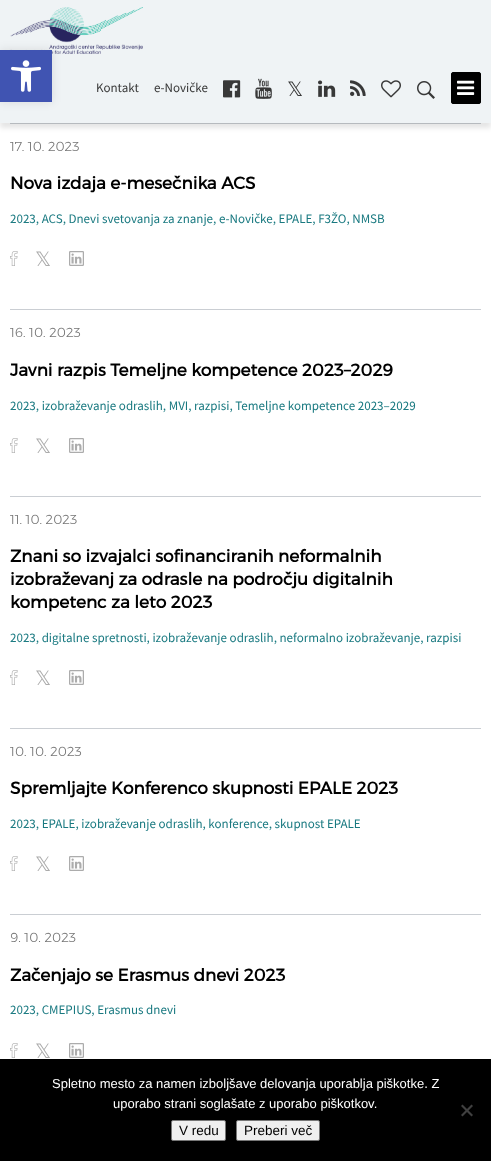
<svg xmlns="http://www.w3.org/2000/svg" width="491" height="1161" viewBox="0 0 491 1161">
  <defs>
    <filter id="blur1" x="-50%" y="-200%" width="200%" height="500%"><feGaussianBlur stdDeviation="2.5"/></filter>
    <filter id="blur2" x="-50%" y="-200%" width="200%" height="500%"><feGaussianBlur stdDeviation="5"/></filter>
  </defs>
  <rect width="100%" height="100%" fill="#ffffff"/>
  <rect x="10" y="123" width="471" height="1" fill="#caced3"/>
  <rect x="0" y="5" width="491" height="123" fill="#000000" fill-opacity="0.1" filter="url(#blur1)"/>
  <rect x="0" y="0" width="491" height="123" fill="#eff3f5"/>
  <image x="10" y="7" width="133" height="47" href="img2.png"/>
  <rect x="0" y="50" width="52" height="52" fill="#000000" fill-opacity="0.1" filter="url(#blur2)"/>
  <rect x="0" y="50" width="52" height="52" fill="#4054b2"/>
  <image x="11" y="60" width="30" height="32" href="img1.png"/>
  <text x="96" y="92" font-family="Source Sans Pro" font-size="13" fill="#383838">Kontakt</text>
  <text x="154" y="92" font-family="Source Sans Pro" font-size="13" fill="#383838">e-Novičke</text>
  <image x="223" y="80" width="18" height="18" href="img3.png"/>
  <image x="255" y="78" width="17" height="21" href="img4.png"/>
  <text x="287" y="96" font-family="DejaVu Sans" font-size="20" fill="#383838">𝕏</text>
  <image x="318" y="80" width="18" height="17" href="img5.png"/>
  <image x="350" y="80" width="16" height="16" href="img6.png"/>
  <image x="381" y="80" width="20" height="18" href="img7.png"/>
  <image x="417" y="81" width="18" height="18" href="img8.png"/>
  <rect x="451.5" y="72.5" width="29" height="31" rx="1.5" fill="#000000" stroke="#000000"/>
  <image x="457" y="80" width="18" height="15" href="img9.png"/>
  <text x="10" y="151" font-family="Montserrat" font-size="13" font-weight="300" fill="#757575">17. 10. 2023</text>
  <text x="10" y="189" font-family="Montserrat" font-size="17" font-weight="bold" fill="#000000">Nova izdaja e-mesečnika ACS</text>
  <text x="10" y="223" font-family="Source Sans Pro" font-size="13" fill="#197980">2023, ACS, Dnevi svetovanja za znanje, e-Novičke, EPALE, F3ŽO, NMSB</text>
  <image x="10" y="251" width="8" height="15" href="img10.png"/>
  <text x="35" y="266" font-family="DejaVu Sans" font-size="20" fill="#acacac">𝕏</text>
  <image x="69" y="251" width="15" height="15" href="img11.png"/>
  <rect x="10" y="309" width="471" height="1" fill="#caced3"/>
  <text x="10" y="337" font-family="Montserrat" font-size="13" font-weight="300" fill="#757575">16. 10. 2023</text>
  <text x="10" y="376" font-family="Montserrat" font-size="17" font-weight="bold" fill="#000000">Javni razpis Temeljne kompetence 2023–2029</text>
  <text x="10" y="410" font-family="Source Sans Pro" font-size="13" fill="#197980">2023, izobraževanje odraslih, MVI, razpisi, Temeljne kompetence 2023–2029</text>
  <image x="10" y="438" width="8" height="15" href="img10.png"/>
  <text x="35" y="453" font-family="DejaVu Sans" font-size="20" fill="#acacac">𝕏</text>
  <image x="69" y="438" width="15" height="15" href="img11.png"/>
  <rect x="10" y="496" width="471" height="1" fill="#caced3"/>
  <text x="10" y="524" font-family="Montserrat" font-size="13" font-weight="300" fill="#757575">11. 10. 2023</text>
  <text x="10" y="562" font-family="Montserrat" font-size="17" font-weight="bold" fill="#000000">Znani so izvajalci sofinanciranih neformalnih</text>
  <text x="10" y="585" font-family="Montserrat" font-size="17" font-weight="bold" fill="#000000">izobraževanj za odrasle na področju digitalnih</text>
  <text x="10" y="608" font-family="Montserrat" font-size="17" font-weight="bold" fill="#000000">kompetenc za leto 2023</text>
  <text x="10" y="642" font-family="Source Sans Pro" font-size="13" fill="#197980">2023, digitalne spretnosti, izobraževanje odraslih, neformalno izobraževanje, razpisi</text>
  <image x="10" y="670" width="8" height="15" href="img10.png"/>
  <text x="35" y="685" font-family="DejaVu Sans" font-size="20" fill="#acacac">𝕏</text>
  <image x="69" y="670" width="15" height="15" href="img11.png"/>
  <rect x="10" y="728" width="471" height="1" fill="#caced3"/>
  <text x="10" y="756" font-family="Montserrat" font-size="13" font-weight="300" fill="#757575">10. 10. 2023</text>
  <text x="10" y="794" font-family="Montserrat" font-size="17" font-weight="bold" fill="#000000">Spremljajte Konferenco skupnosti EPALE 2023</text>
  <text x="10" y="828" font-family="Source Sans Pro" font-size="13" fill="#197980">2023, EPALE, izobraževanje odraslih, konference, skupnost EPALE</text>
  <image x="10" y="856" width="8" height="15" href="img10.png"/>
  <text x="35" y="871" font-family="DejaVu Sans" font-size="20" fill="#acacac">𝕏</text>
  <image x="69" y="856" width="15" height="15" href="img11.png"/>
  <rect x="10" y="914" width="471" height="1" fill="#caced3"/>
  <text x="10" y="942" font-family="Montserrat" font-size="13" font-weight="300" fill="#757575">9. 10. 2023</text>
  <text x="10" y="981" font-family="Montserrat" font-size="17" font-weight="bold" fill="#000000">Začenjajo se Erasmus dnevi 2023</text>
  <text x="10" y="1014" font-family="Source Sans Pro" font-size="13" fill="#197980">2023, CMEPIUS, Erasmus dnevi</text>
  <image x="10" y="1043" width="8" height="15" href="img10.png"/>
  <text x="35" y="1058" font-family="DejaVu Sans" font-size="20" fill="#acacac">𝕏</text>
  <image x="69" y="1043" width="15" height="15" href="img11.png"/>
  <rect x="0" y="1059" width="491" height="102" fill="#000000"/>
  <text x="52" y="1088" font-family="Liberation Sans" font-size="13" fill="#ffffff">Spletno mesto za namen izboljšave delovanja uporablja piškotke. Z</text>
  <text x="113" y="1108" font-family="Liberation Sans" font-size="13" fill="#ffffff">uporabo strani soglašate z uporabo piškotkov.</text>
  <path d="M471.5 1104.5L473 1106L462.5 1116.5L461 1115Z" fill="#404040"/>
  <path d="M461 1106L462.5 1104.5L473 1115L471.5 1116.5Z" fill="#404040"/>
  <rect x="171.5" y="1120.5" width="54" height="20" rx="1.5" fill="#efefef" stroke="#767676"/>
  <text x="179" y="1135" font-family="Liberation Sans" font-size="13.5" fill="#000000">V redu</text>
  <rect x="236.5" y="1120.5" width="83" height="20" rx="1.5" fill="#efefef" stroke="#767676"/>
  <text x="244" y="1135" font-family="Liberation Sans" font-size="13.5" fill="#000000">Preberi več</text>
</svg>
